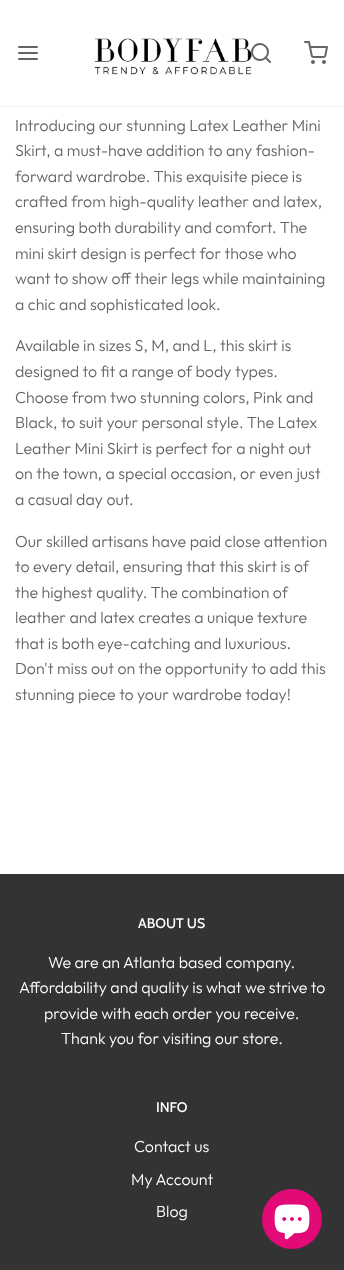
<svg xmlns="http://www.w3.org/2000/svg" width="344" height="1270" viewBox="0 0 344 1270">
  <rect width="100%" height="100%" fill="#ffffff"/>
  <rect x="0" y="106" width="344" height="1" fill="#f0f0f0"/>
  <path d="M19 53H37M19 47H37M19 59H37" fill="none" stroke="#656565" stroke-width="2" stroke-linecap="round" stroke-linejoin="round"/>
  <image x="94" y="38" width="158" height="37" href="img1.png"/>
  <circle cx="260" cy="52" r="8" fill="none" stroke="#656565" stroke-width="2"/>
  <path d="M270 62L265.5 57.5" fill="none" stroke="#656565" stroke-width="2" stroke-linecap="round" stroke-linejoin="round"/>
  <image x="304" y="41" width="24" height="23" href="img2.png"/>
  <text x="15" y="131" font-family="Outfit" font-size="16" font-weight="300" fill="#656565">Introducing our stunning Latex Leather Mini</text>
  <text x="15" y="156" font-family="Outfit" font-size="16" font-weight="300" fill="#656565">Skirt, a must-have addition to any fashion-</text>
  <text x="15" y="182" font-family="Outfit" font-size="16" font-weight="300" fill="#656565">forward wardrobe. This exquisite piece is</text>
  <text x="15" y="207" font-family="Outfit" font-size="16" font-weight="300" fill="#656565">crafted from high-quality leather and latex,</text>
  <text x="15" y="233" font-family="Outfit" font-size="16" font-weight="300" fill="#656565">ensuring both durability and comfort. The</text>
  <text x="15" y="259" font-family="Outfit" font-size="16" font-weight="300" fill="#656565">mini skirt design is perfect for those who</text>
  <text x="15" y="284" font-family="Outfit" font-size="16" font-weight="300" fill="#656565">want to show off their legs while maintaining</text>
  <text x="15" y="310" font-family="Outfit" font-size="16" font-weight="300" fill="#656565">a chic and sophisticated look.</text>
  <text x="15" y="351" font-family="Outfit" font-size="16" font-weight="300" fill="#656565">Available in sizes S, M, and L, this skirt is</text>
  <text x="15" y="377" font-family="Outfit" font-size="16" font-weight="300" fill="#656565">designed to fit a range of body types.</text>
  <text x="15" y="403" font-family="Outfit" font-size="16" font-weight="300" fill="#656565">Choose from two stunning colors, Pink and</text>
  <text x="15" y="428" font-family="Outfit" font-size="16" font-weight="300" fill="#656565">Black, to suit your personal style. The Latex</text>
  <text x="15" y="454" font-family="Outfit" font-size="16" font-weight="300" fill="#656565">Leather Mini Skirt is perfect for a night out</text>
  <text x="15" y="479" font-family="Outfit" font-size="16" font-weight="300" fill="#656565">on the town, a special occasion, or even just</text>
  <text x="15" y="505" font-family="Outfit" font-size="16" font-weight="300" fill="#656565">a casual day out.</text>
  <text x="15" y="547" font-family="Outfit" font-size="16" font-weight="300" fill="#656565">Our skilled artisans have paid close attention</text>
  <text x="15" y="572" font-family="Outfit" font-size="16" font-weight="300" fill="#656565">to every detail, ensuring that this skirt is of</text>
  <text x="15" y="598" font-family="Outfit" font-size="16" font-weight="300" fill="#656565">the highest quality. The combination of</text>
  <text x="15" y="623" font-family="Outfit" font-size="16" font-weight="300" fill="#656565">leather and latex creates a unique texture</text>
  <text x="15" y="649" font-family="Outfit" font-size="16" font-weight="300" fill="#656565">that is both eye-catching and luxurious.</text>
  <text x="15" y="674" font-family="Outfit" font-size="16" font-weight="300" fill="#656565">Don't miss out on the opportunity to add this</text>
  <text x="15" y="700" font-family="Outfit" font-size="16" font-weight="300" fill="#656565">stunning piece to your wardrobe today!</text>
  <rect x="0" y="874" width="344" height="396" fill="#333333"/>
  <text x="138" y="928" font-family="Cabin" font-size="14" font-weight="500" fill="#ffffff">ABOUT US</text>
  <text x="48" y="968" font-family="Outfit" font-size="16" font-weight="300" fill="#ffffff">We are an Atlanta based company.</text>
  <text x="19" y="993" font-family="Outfit" font-size="16" font-weight="300" fill="#ffffff">Affordability and quality is what we strive to</text>
  <text x="44" y="1019" font-family="Outfit" font-size="16" font-weight="300" fill="#ffffff">provide with each order you receive.</text>
  <text x="61" y="1044" font-family="Outfit" font-size="16" font-weight="300" fill="#ffffff">Thank you for visiting our store.</text>
  <text x="156" y="1112" font-family="Cabin" font-size="14" font-weight="500" fill="#ffffff">INFO</text>
  <text x="134" y="1152" font-family="Outfit" font-size="16" font-weight="300" fill="#ffffff">Contact us</text>
  <text x="131" y="1185" font-family="Outfit" font-size="16" font-weight="300" fill="#ffffff">My Account</text>
  <text x="156" y="1217" font-family="Outfit" font-size="16" font-weight="300" fill="#ffffff">Blog</text>
  <circle cx="292" cy="1219" r="30" fill="#e10a77"/>
  <image x="274" y="1204" width="36" height="36" href="img3.png"/>
</svg>
